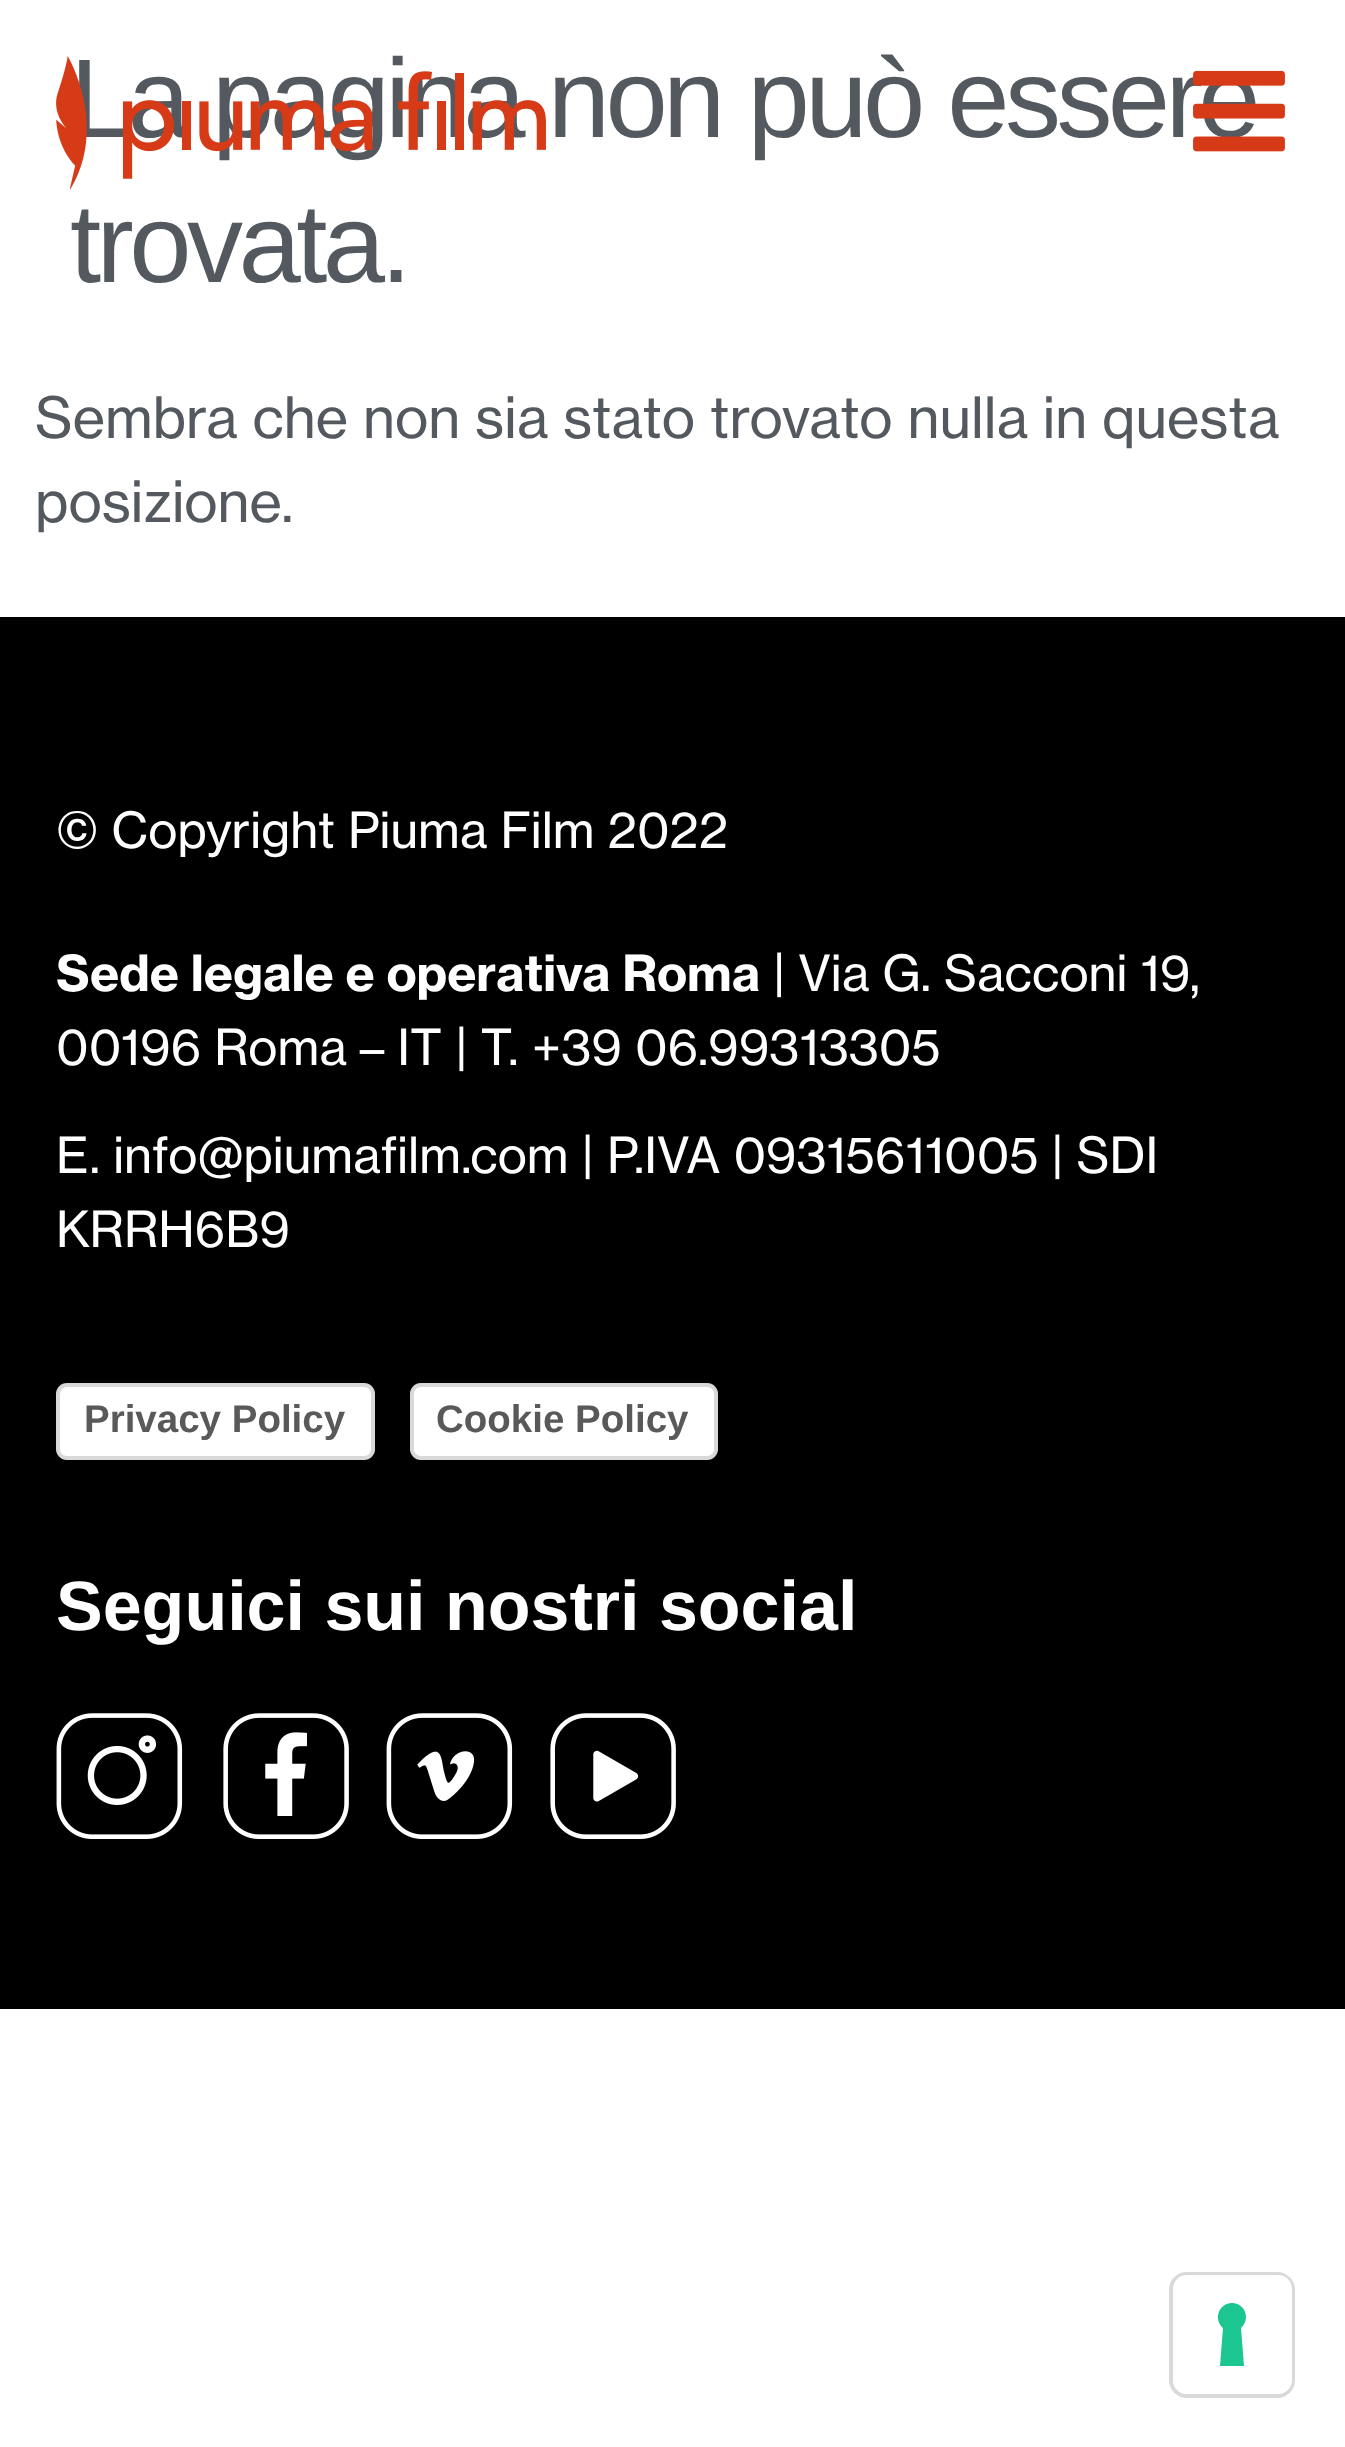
<svg xmlns="http://www.w3.org/2000/svg" width="1345" height="2447" viewBox="0 0 1345 2447">
  <rect width="100%" height="100%" fill="#ffffff"/>
  <text x="70" y="137" font-family="Liberation Sans" font-size="112" letter-spacing="-4.55" fill="#54595f">La pagina non può essere</text>
  <text x="70" y="282" font-family="Liberation Sans" font-size="112" letter-spacing="-4.55" fill="#54595f">trovata.</text>
  <text x="35" y="438" font-family="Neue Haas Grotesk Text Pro" font-size="56" fill="#54595f">Sembra che non sia stato trovato nulla in questa</text>
  <text x="35" y="522" font-family="Neue Haas Grotesk Text Pro" font-size="56" fill="#54595f">posizione.</text>
  <image x="56" y="56" width="490" height="133" href="img1.png"/>
  <image x="1193" y="70" width="92" height="82" href="img2.png"/>
  <rect x="0" y="617" width="1345" height="1392" fill="#000000"/>
  <text x="56" y="848" font-family="Neue Haas Grotesk Text Pro" font-size="49" fill="#ffffff">© Copyright Piuma Film 2022</text>
  <text x="56" y="991" font-family="Neue Haas Grotesk Text Pro" font-size="49" font-weight="bold" fill="#ffffff">Sede legale e operativa Roma</text>
  <text x="773" y="991" font-family="Neue Haas Grotesk Text Pro" font-size="49" fill="#ffffff">| Via G. Sacconi 19,</text>
  <text x="56" y="1065" font-family="Neue Haas Grotesk Text Pro" font-size="49" fill="#ffffff">00196 Roma – IT | T. +39 06.</text>
  <text x="708" y="1065" font-family="Neue Haas Grotesk Text Pro" font-size="49" fill="#ffffff">99313305</text>
  <text x="56" y="1173" font-family="Neue Haas Grotesk Text Pro" font-size="49" fill="#ffffff">E. info@piumafilm.com | P.IVA 09315611005 | SDI</text>
  <text x="56" y="1247" font-family="Neue Haas Grotesk Text Pro" font-size="49" fill="#ffffff">KRRH6B9</text>
  <rect x="56" y="1383" width="319" height="77" rx="11" fill="#ffffff"/>
  <rect x="58" y="1385" width="315" height="73" rx="9" fill="none" stroke="#000000" stroke-opacity="0.15" stroke-width="4"/>
  <text x="84" y="1432" font-family="Liberation Sans" font-size="38.5" font-weight="bold" fill="#595959">Privacy Policy</text>
  <rect x="410" y="1383" width="308" height="77" rx="11" fill="#ffffff"/>
  <rect x="412" y="1385" width="304" height="73" rx="9" fill="none" stroke="#000000" stroke-opacity="0.15" stroke-width="4"/>
  <text x="436" y="1432" font-family="Liberation Sans" font-size="38.5" font-weight="bold" fill="#595959">Cookie Policy</text>
  <text x="56" y="1630" font-family="Liberation Sans" font-size="70" font-weight="bold" fill="#ffffff">Seguici sui nostri social</text>
  <image x="56" y="1713" width="127" height="126" href="img3.png"/>
  <image x="223" y="1713" width="126" height="126" href="img4.png"/>
  <image x="386" y="1713" width="127" height="126" href="img5.png"/>
  <image x="550" y="1713" width="126" height="126" href="img6.png"/>
  <rect x="1171" y="2274" width="122" height="122" rx="16" fill="none" stroke="#d9d9d9" stroke-width="4"/>
  <rect x="1173" y="2275" width="119" height="119" rx="14" fill="#ffffff"/>
  <path d="M1232 2303C1245 2303 1251 2319 1241 2328L1244 2366H1220L1223 2328C1213 2319 1219 2303 1232 2303Z" fill="#1cc691" fill-rule="evenodd"/>
</svg>
